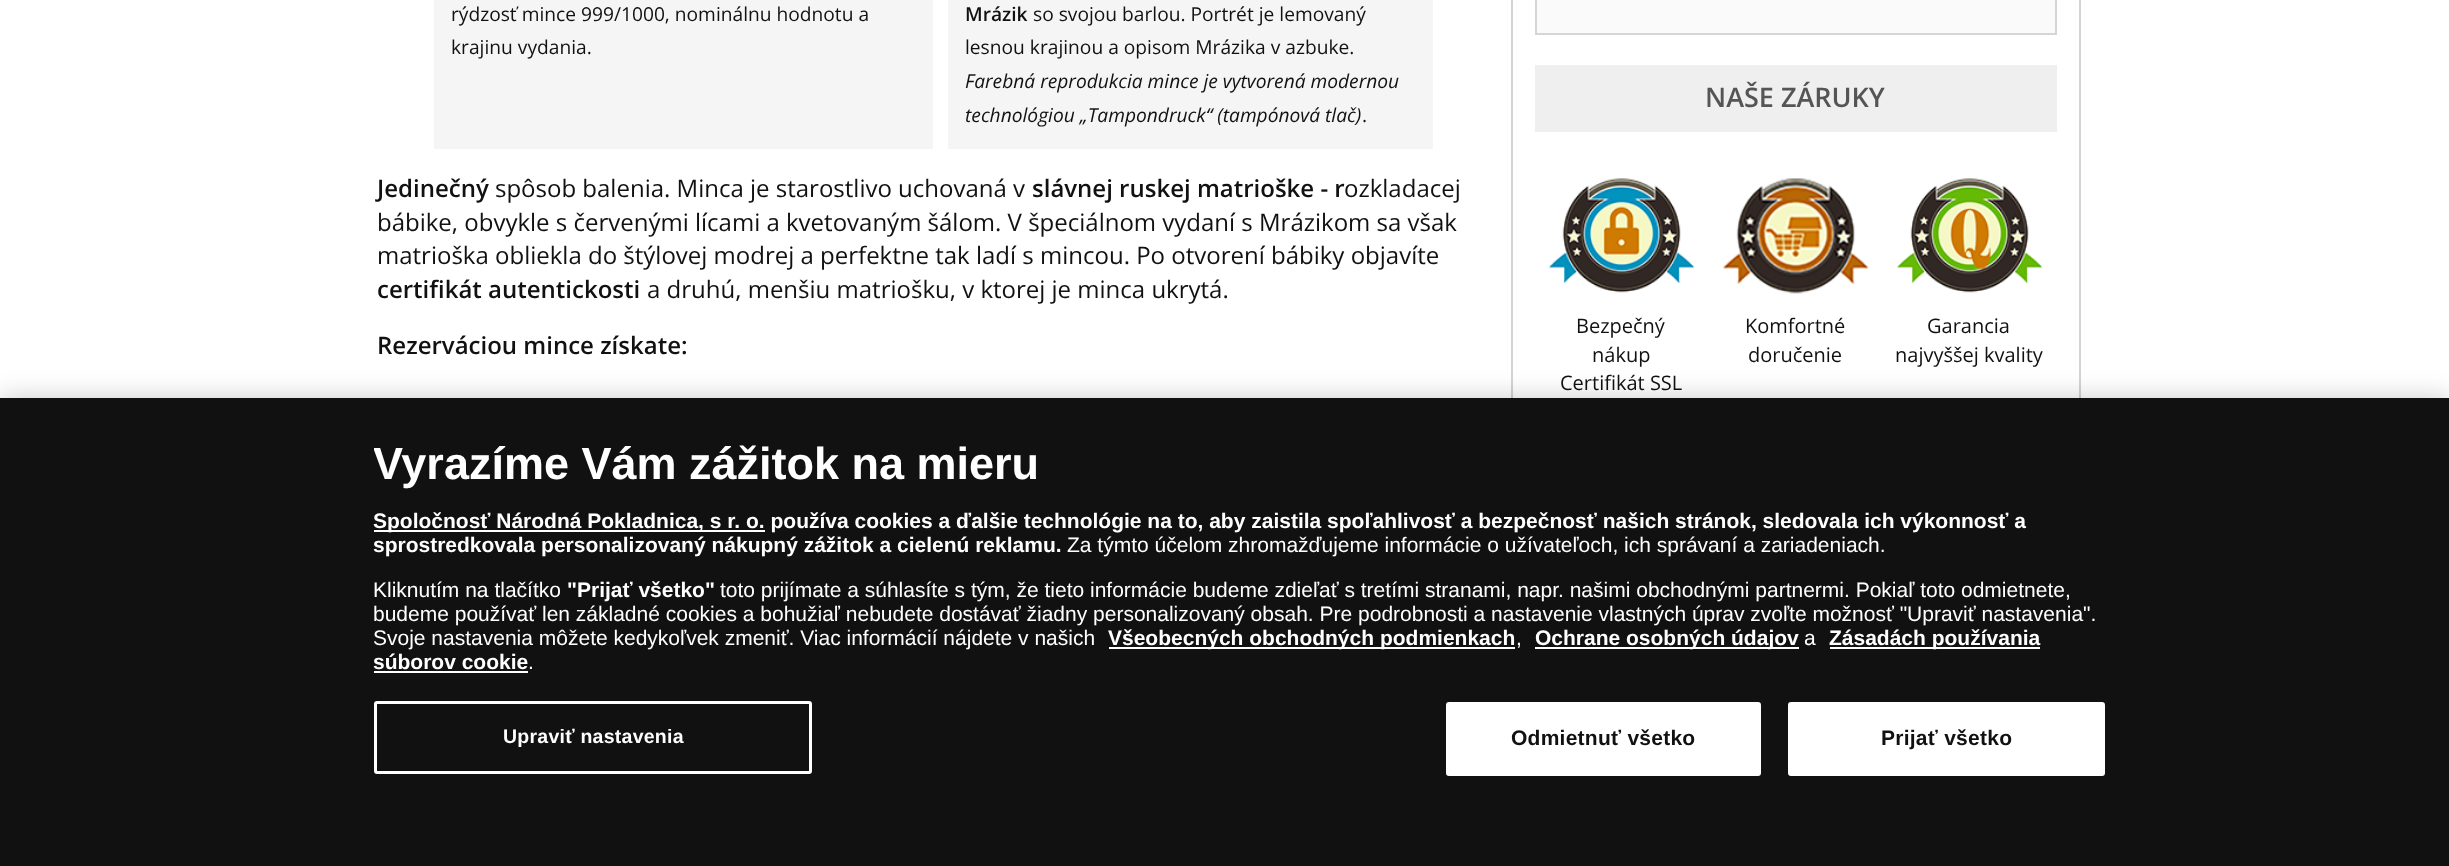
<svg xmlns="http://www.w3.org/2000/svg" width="2449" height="866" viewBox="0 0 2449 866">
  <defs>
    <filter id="blur1" x="-50%" y="-200%" width="200%" height="500%"><feGaussianBlur stdDeviation="13.5"/></filter>
    <clipPath id="clip1"><rect x="374" y="428" width="1752" height="288"/></clipPath>
  </defs>
  <rect width="100%" height="100%" fill="#ffffff"/>
  <rect x="434" y="0" width="999" height="149" fill="#f5f5f5"/>
  <text x="451" y="21" font-family="Open Sans" font-size="19.2" fill="#111111">rýdzosť mince 999/1000, nominálnu hodnotu a</text>
  <text x="451" y="54" font-family="Open Sans" font-size="19.2" fill="#111111">krajinu vydania.</text>
  <rect x="933" y="0" width="15" height="149" fill="#ffffff"/>
  <text x="965" y="21" font-family="Open Sans" font-size="19.2" font-weight="600" fill="#111111">Mrázik</text>
  <text x="1033" y="21" font-family="Open Sans" font-size="19.2" fill="#111111">so svojou barlou. Portrét je lemovaný</text>
  <text x="965" y="54" font-family="Open Sans" font-size="19.2" fill="#111111">lesnou krajinou a opisom Mrázika v azbuke.</text>
  <text x="965" y="88" font-family="Open Sans" font-size="19.2" font-style="italic" fill="#111111">Farebná reprodukcia mince je vytvorená modernou</text>
  <text x="965" y="122" font-family="Open Sans" font-size="19.2" font-style="italic" fill="#111111">technológiou „Tampondruck“ (tampónová tlač)</text>
  <text x="1362" y="122" font-family="Open Sans" font-size="19.2" fill="#111111">.</text>
  <text x="377" y="197" font-family="Open Sans" font-size="24" font-weight="600" fill="#111111">Jedinečný</text>
  <text x="495" y="197" font-family="Open Sans" font-size="24" fill="#111111">spôsob balenia. Minca je starostlivo uchovaná v</text>
  <text x="1032" y="197" font-family="Open Sans" font-size="24" font-weight="600" fill="#111111">slávnej ruskej matrioške - r</text>
  <text x="1344" y="197" font-family="Open Sans" font-size="24" fill="#111111">ozkladacej</text>
  <text x="377" y="231" font-family="Open Sans" font-size="24" fill="#111111">bábike, obvykle s červenými lícami a kvetovaným šálom. V špeciálnom vydaní s Mrázikom sa však</text>
  <text x="377" y="264" font-family="Open Sans" font-size="24" fill="#111111">matrioška obliekla do štýlovej modrej a perfektne tak ladí s mincou. Po otvorení bábiky objavíte</text>
  <text x="377" y="298" font-family="Open Sans" font-size="24" font-weight="600" fill="#111111">certifikát autentickosti</text>
  <text x="647" y="298" font-family="Open Sans" font-size="24" fill="#111111">a druhú, menšiu matriošku, v ktorej je minca ukrytá.</text>
  <text x="377" y="354" font-family="Open Sans" font-size="24" font-weight="600" fill="#111111">Rezerváciou mince získate:</text>
  <rect x="1512" y="-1" width="568" height="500" fill="none" stroke="#d3d3d3" stroke-width="2"/>
  <rect x="1536" y="-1" width="520" height="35" fill="#fafafa" stroke="#d5d5d5" stroke-width="2"/>
  <rect x="1535" y="65" width="522" height="67" fill="#efefef"/>
  <text x="1705" y="107" font-family="Open Sans" font-size="27" font-weight="600" fill="#555555">NAŠE ZÁRUKY</text>
  <image x="1548" y="178" width="147" height="115" href="img1.png"/>
  <text x="1576" y="333" font-family="Open Sans" font-size="20" fill="#111111">Bezpečný</text>
  <text x="1592" y="362" font-family="Open Sans" font-size="20" fill="#111111">nákup</text>
  <text x="1560" y="390" font-family="Open Sans" font-size="20" fill="#111111">Certifikát SSL</text>
  <image x="1722" y="178" width="147" height="116" href="img2.png"/>
  <text x="1745" y="333" font-family="Open Sans" font-size="20" fill="#111111">Komfortné</text>
  <text x="1748" y="362" font-family="Open Sans" font-size="20" fill="#111111">doručenie</text>
  <image x="1896" y="178" width="147" height="115" href="img3.png"/>
  <text x="1927" y="333" font-family="Open Sans" font-size="20" fill="#111111">Garancia</text>
  <text x="1895" y="362" font-family="Open Sans" font-size="20" fill="#111111">najvyššej kvality</text>
  <rect x="0" y="398" width="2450" height="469" fill="#000000" fill-opacity="0.2" filter="url(#blur1)"/>
  <rect x="0" y="398" width="2449" height="468" fill="#111111"/>
  <g clip-path="url(#clip1)">
    <text x="373" y="479" font-family="Liberation Sans" font-size="45" font-weight="bold" fill="#ffffff">Vyrazíme Vám zážitok na mieru</text>
  </g>
  <rect x="374" y="530" width="391" height="2" fill="#ffffff"/>
  <text x="373" y="528" font-family="Liberation Sans" font-size="21" font-weight="bold" fill="#ffffff">Spoločnosť Národná Pokladnica, s r. o. používa cookies a ďalšie technológie na to, aby zaistila spoľahlivosť a bezpečnosť našich stránok, sledovala ich výkonnosť a</text>
  <text x="373" y="552" font-family="Liberation Sans" font-size="21" font-weight="bold" fill="#ffffff">sprostredkovala personalizovaný nákupný zážitok a cielenú reklamu.</text>
  <text x="1067" y="552" font-family="Liberation Sans" font-size="21" fill="#ffffff">Za týmto účelom zhromažďujeme informácie o užívateľoch, ich správaní a zariadeniach.</text>
  <text x="373" y="597" font-family="Liberation Sans" font-size="21" fill="#ffffff">Kliknutím na tlačítko</text>
  <text x="567" y="597" font-family="Liberation Sans" font-size="21" font-weight="bold" fill="#ffffff">"Prijať všetko"</text>
  <text x="720" y="597" font-family="Liberation Sans" font-size="21" fill="#ffffff">toto prijímate a súhlasíte s tým, že tieto informácie budeme zdieľať s tretími stranami, napr. našimi obchodnými partnermi. Pokiaľ toto odmietnete,</text>
  <text x="373" y="621" font-family="Liberation Sans" font-size="21" fill="#ffffff">budeme používať len základné cookies a bohužiaľ nebudete dostávať žiadny personalizovaný obsah. Pre podrobnosti a nastavenie vlastných úprav zvoľte možnosť "Upraviť nastavenia".</text>
  <text x="373" y="645" font-family="Liberation Sans" font-size="21" fill="#ffffff">Svoje nastavenia môžete kedykoľvek zmeniť. Viac informácií nájdete v našich</text>
  <rect x="1109" y="647" width="406" height="2" fill="#ffffff"/>
  <text x="1108" y="645" font-family="Liberation Sans" font-size="21" font-weight="bold" fill="#ffffff">Všeobecných obchodných podmienkach</text>
  <text x="1516" y="645" font-family="Liberation Sans" font-size="21" fill="#ffffff">,</text>
  <rect x="1535" y="647" width="264" height="2" fill="#ffffff"/>
  <text x="1535" y="645" font-family="Liberation Sans" font-size="21" font-weight="bold" fill="#ffffff">Ochrane osobných údajov</text>
  <text x="1804" y="645" font-family="Liberation Sans" font-size="21" fill="#ffffff">a</text>
  <rect x="1830" y="647" width="210" height="2" fill="#ffffff"/>
  <text x="1829" y="645" font-family="Liberation Sans" font-size="21" font-weight="bold" fill="#ffffff">Zásadách používania</text>
  <text x="373" y="669" font-family="Liberation Sans" font-size="21" font-weight="bold" fill="#ffffff">súborov cookie</text>
  <rect x="374" y="671" width="154" height="2" fill="#ffffff"/>
  <text x="528" y="669" font-family="Liberation Sans" font-size="21" fill="#ffffff">.</text>
  <rect x="375.5" y="702.5" width="435" height="70" rx="1.5" fill="none" stroke="#ffffff" stroke-width="3"/>
  <text x="503" y="743" font-family="Liberation Sans" font-size="19.5" font-weight="bold" letter-spacing="0.25" fill="#ffffff">Upraviť nastavenia</text>
  <rect x="1447" y="703" width="313" height="72" rx="2" fill="#ffffff" stroke="#ffffff" stroke-width="2"/>
  <text x="1511" y="745" font-family="Liberation Sans" font-size="21" font-weight="bold" letter-spacing="0.25" fill="#111111">Odmietnuť všetko</text>
  <rect x="1789" y="703" width="315" height="72" rx="2" fill="#ffffff" stroke="#ffffff" stroke-width="2"/>
  <text x="1881" y="745" font-family="Liberation Sans" font-size="21" font-weight="bold" letter-spacing="0.25" fill="#111111">Prijať všetko</text>
</svg>
